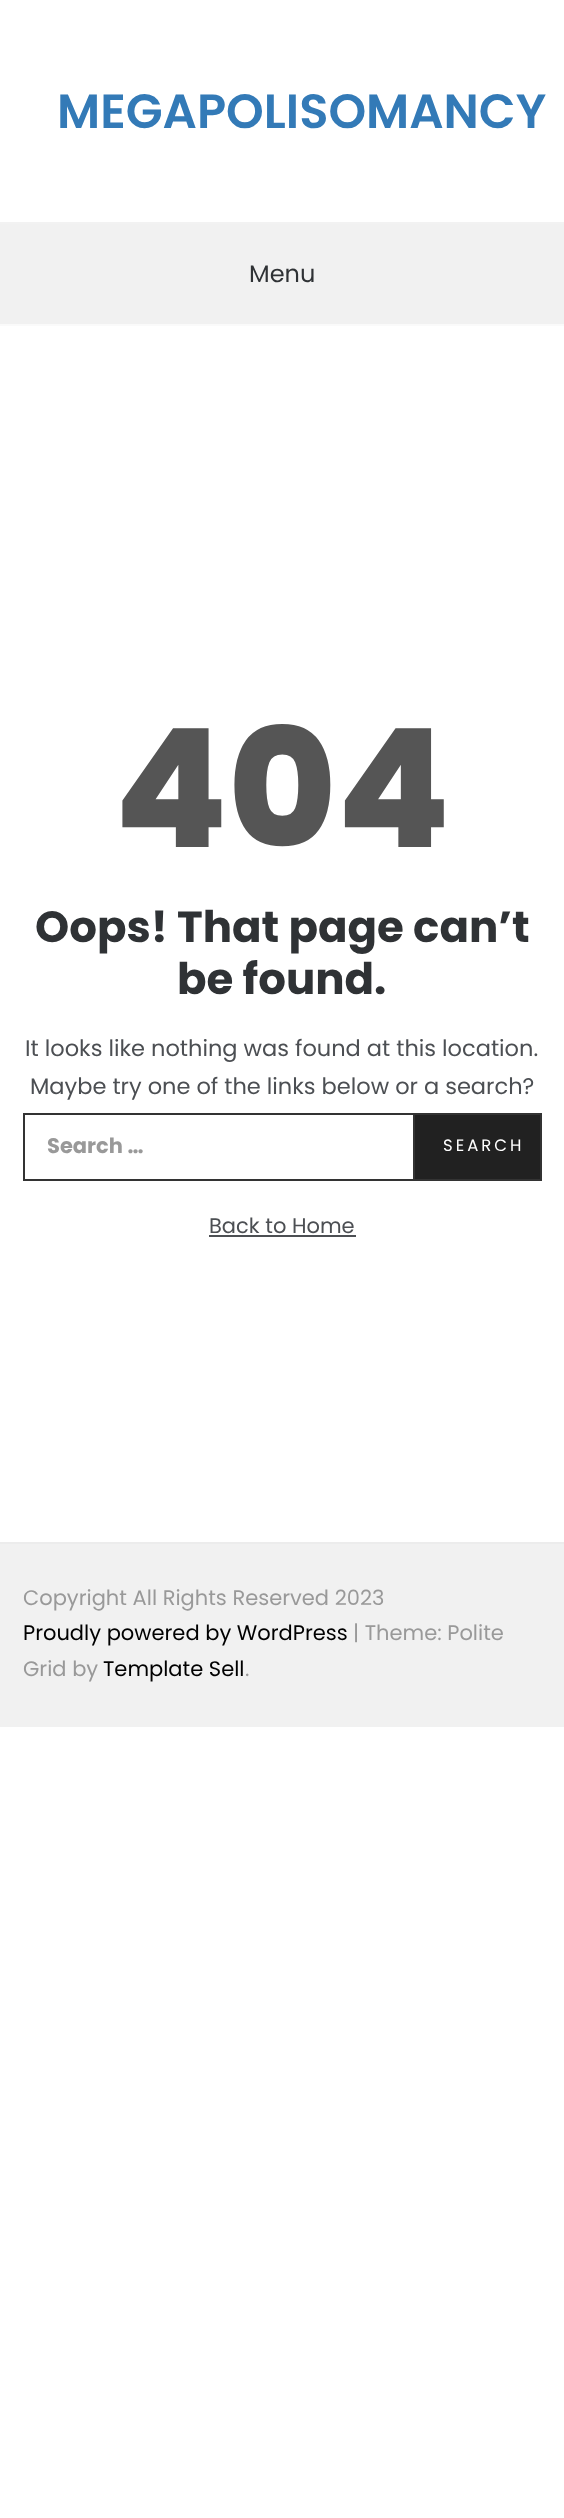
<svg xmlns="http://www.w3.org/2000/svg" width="564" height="2518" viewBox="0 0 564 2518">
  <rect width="100%" height="100%" fill="#ffffff"/>
  <rect x="0" y="324" width="564" height="2" fill="#fafafa"/>
  <rect x="0" y="222" width="564" height="2" fill="#f2f2f2"/>
  <text x="57" y="128" font-family="Poppins" font-size="48" font-weight="600" fill="#337ab7">MEGAPOLISOMANCY</text>
  <rect x="0" y="224" width="564" height="100" fill="#f1f1f1"/>
  <text x="249" y="282" font-family="Poppins" font-size="24" fill="#2f3235">Menu</text>
  <text x="114" y="847" font-family="Poppins" font-size="165" font-weight="800" fill="#555555">404</text>
  <text x="35" y="942" font-family="Poppins" font-size="43.5" font-weight="bold" fill="#2f3235">Oops! That page can’t</text>
  <text x="177" y="994" font-family="Poppins" font-size="43.5" font-weight="bold" fill="#2f3235">be found.</text>
  <text x="25" y="1056" font-family="Poppins" font-size="22.5" fill="#4c4f53">It looks like nothing was found at this location.</text>
  <text x="30" y="1094" font-family="Poppins" font-size="22.5" fill="#4c4f53">Maybe try one of the links below or a search?</text>
  <rect x="23" y="1113" width="390" height="2" fill="#333333"/>
  <rect x="23" y="1179" width="390" height="2" fill="#333333"/>
  <rect x="23" y="1113" width="2" height="68" fill="#333333"/>
  <text x="47" y="1153" font-family="Poppins" font-size="21" font-weight="bold" fill="#999999">Search …</text>
  <rect x="414" y="1114" width="127" height="66" fill="#212121" stroke="#333333" stroke-width="2"/>
  <text x="443" y="1151" font-family="Poppins" font-size="16.5" letter-spacing="3" fill="#ffffff">SEARCH</text>
  <text x="209" y="1233" font-family="Poppins" font-size="21" fill="#4c4f53">Back to Home</text>
  <rect x="209" y="1235" width="147" height="2" fill="#4c4f53"/>
  <rect x="0" y="1544" width="564" height="183" fill="#f1f1f1"/>
  <rect x="0" y="1542" width="564" height="2" fill="#ececec"/>
  <text x="23" y="1605" font-family="Poppins" font-size="21" fill="#999999">Copyright All Rights Reserved 2023</text>
  <text x="23" y="1640" font-family="Poppins" font-size="21" fill="#000000">Proudly powered by WordPress</text>
  <text x="353" y="1640" font-family="Poppins" font-size="21" fill="#999999">| Theme: Polite</text>
  <text x="23" y="1676" font-family="Poppins" font-size="21" fill="#999999">Grid by</text>
  <text x="103" y="1676" font-family="Poppins" font-size="21" fill="#000000">Template Sell</text>
  <text x="245" y="1676" font-family="Poppins" font-size="21" fill="#999999">.</text>
</svg>
